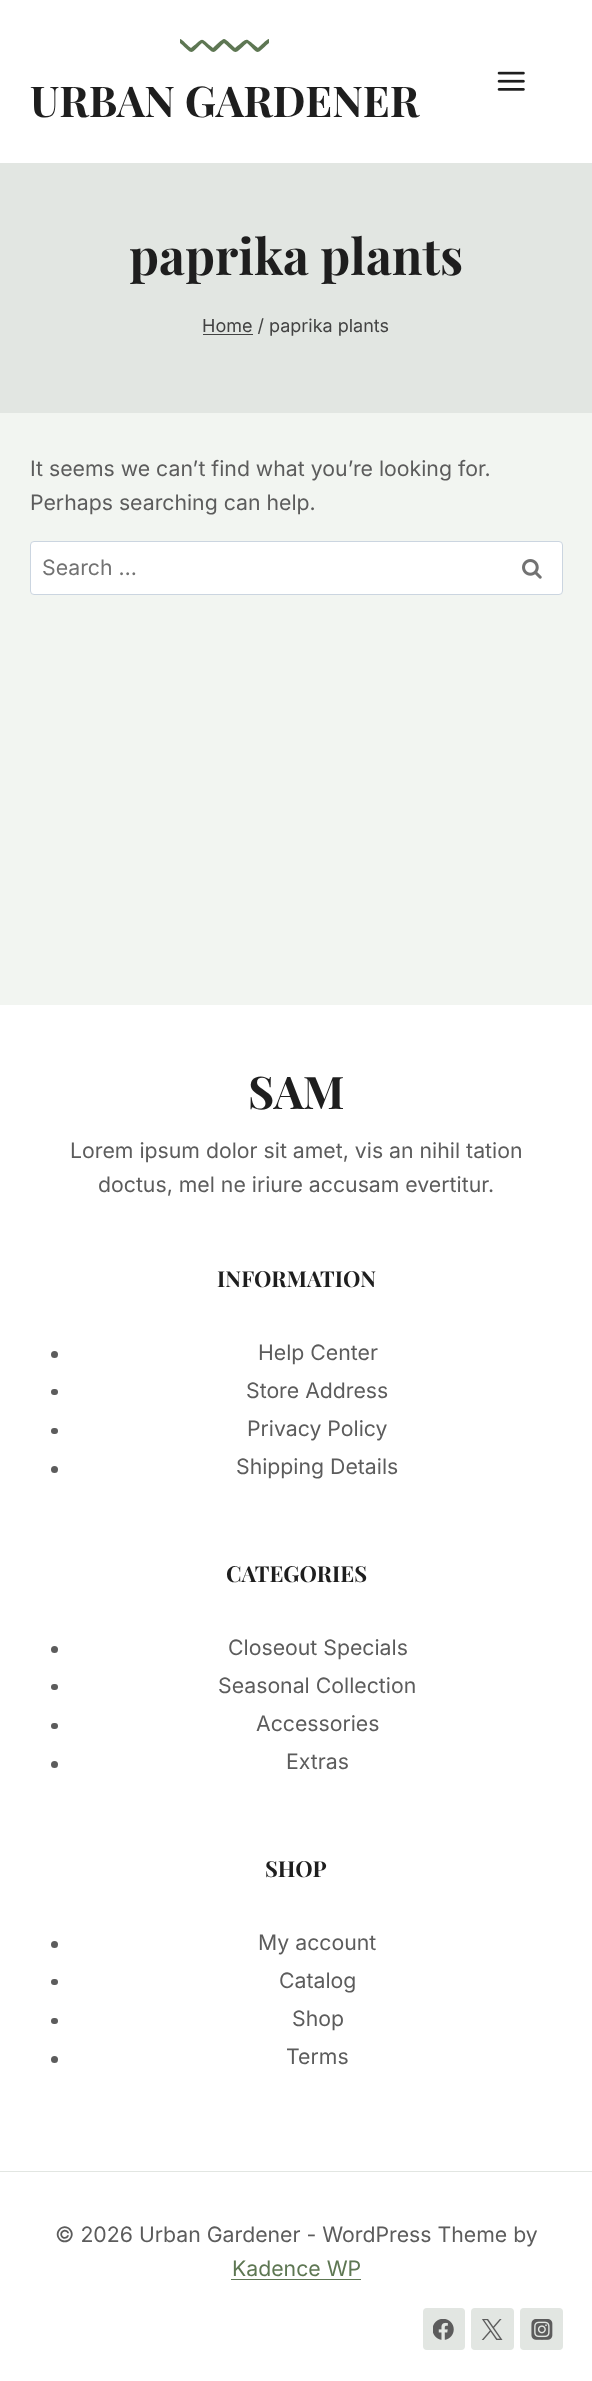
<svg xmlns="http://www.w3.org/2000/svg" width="592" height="2381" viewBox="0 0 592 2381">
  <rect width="100%" height="100%" fill="#f2f5f1"/>
  <rect x="0" y="0" width="592" height="163" fill="#ffffff"/>
  <image x="497" y="71" width="28" height="20" href="img1.png"/>
  <path d="M269 43V39C267 39 259 47 258 48C244 37 249 37 235 48C234 47 226 39 224 39C222 39 215 46 213 48C199 37 205 37 191 48C189 47 182 39 180 39V43C194 55 189 55 202 43C216 55 211 55 224 43C238 55 233 55 247 43C260 55 255 55 269 43Z" fill="#5e7753" fill-rule="evenodd"/>
  <text x="30" y="117" font-family="Playfair Display" font-size="42.5" font-weight="bold" fill="#1e1e1e">URBAN GARDENER</text>
  <rect x="0" y="163" width="592" height="250" fill="#e2e6e2"/>
  <text x="129" y="275" font-family="Playfair Display" font-size="50" font-weight="bold" fill="#1e1e1e">paprika plants</text>
  <rect x="203" y="334" width="50" height="1" fill="#424242"/>
  <text x="202" y="332" font-family="Inter" font-size="18" fill="#424242">Home / paprika plants</text>
  <text x="30" y="476" font-family="Inter" font-size="21.25" fill="#5c5c5c">It seems we can’t find what you’re looking for.</text>
  <text x="30" y="510" font-family="Inter" font-size="21.25" fill="#5c5c5c">Perhaps searching can help.</text>
  <rect x="30.5" y="541.5" width="532" height="53" rx="3.5" fill="#ffffff" stroke="#cbd5e0"/>
  <text x="42" y="575" font-family="Inter" font-size="21.25" fill="#727272">Search …</text>
  <image x="522" y="559" width="20" height="20" href="img2.png"/>
  <rect x="0" y="1005" width="592" height="1166" fill="#ffffff"/>
  <text x="248" y="1109" font-family="Playfair Display" font-size="45" font-weight="bold" fill="#1e1e1e">SAM</text>
  <text x="70" y="1158" font-family="Inter" font-size="21.25" fill="#5c5c5c">Lorem ipsum dolor sit amet, vis an nihil tation</text>
  <text x="98" y="1192" font-family="Inter" font-size="21.25" fill="#5c5c5c">doctus, mel ne iriure accusam evertitur.</text>
  <text x="217" y="1287" font-family="Playfair Display" font-size="22" font-weight="bold" fill="#1e1e1e">INFORMATION</text>
  <circle cx="54.5" cy="1354.5" r="3.5" fill="#5c5c5c"/>
  <text x="258" y="1360" font-family="Inter" font-size="21.25" fill="#5c5c5c">Help Center</text>
  <rect x="51" y="1389" width="7" height="6" rx="3" fill="#5c5c5c"/>
  <text x="246" y="1398" font-family="Inter" font-size="21.25" fill="#5c5c5c">Store Address</text>
  <rect x="51" y="1428" width="7" height="6" rx="3" fill="#5c5c5c"/>
  <text x="247" y="1436" font-family="Inter" font-size="21.25" fill="#5c5c5c">Privacy Policy</text>
  <circle cx="54.5" cy="1469.5" r="3.5" fill="#5c5c5c"/>
  <text x="236" y="1474" font-family="Inter" font-size="21.25" fill="#5c5c5c">Shipping Details</text>
  <text x="226" y="1582" font-family="Playfair Display" font-size="22" font-weight="bold" fill="#1e1e1e">CATEGORIES</text>
  <circle cx="54.5" cy="1649.5" r="3.5" fill="#5c5c5c"/>
  <text x="228" y="1655" font-family="Inter" font-size="21.25" fill="#5c5c5c">Closeout Specials</text>
  <rect x="51" y="1684" width="7" height="6" rx="3" fill="#5c5c5c"/>
  <text x="218" y="1693" font-family="Inter" font-size="21.25" fill="#5c5c5c">Seasonal Collection</text>
  <rect x="51" y="1723" width="7" height="6" rx="3" fill="#5c5c5c"/>
  <text x="256" y="1731" font-family="Inter" font-size="21.25" fill="#5c5c5c">Accessories</text>
  <circle cx="54.5" cy="1764.5" r="3.5" fill="#5c5c5c"/>
  <text x="286" y="1769" font-family="Inter" font-size="21.25" fill="#5c5c5c">Extras</text>
  <text x="265" y="1877" font-family="Playfair Display" font-size="22" font-weight="bold" fill="#1e1e1e">SHOP</text>
  <circle cx="54.5" cy="1944.5" r="3.5" fill="#5c5c5c"/>
  <text x="258" y="1950" font-family="Inter" font-size="21.25" fill="#5c5c5c">My account</text>
  <rect x="51" y="1979" width="7" height="6" rx="3" fill="#5c5c5c"/>
  <text x="279" y="1988" font-family="Inter" font-size="21.25" fill="#5c5c5c">Catalog</text>
  <rect x="51" y="2018" width="7" height="6" rx="3" fill="#5c5c5c"/>
  <text x="292" y="2026" font-family="Inter" font-size="21.25" fill="#5c5c5c">Shop</text>
  <circle cx="54.5" cy="2059.5" r="3.5" fill="#5c5c5c"/>
  <text x="286" y="2064" font-family="Inter" font-size="21.25" fill="#5c5c5c">Terms</text>
  <rect x="0" y="2172" width="592" height="209" fill="#ffffff"/>
  <rect x="0" y="2171" width="592" height="1" fill="#e2e6e2"/>
  <text x="55" y="2242" font-family="Inter" font-size="21.25" fill="#5c5c5c">© 2026 Urban Gardener - WordPress Theme by</text>
  <text x="232" y="2276" font-family="Inter" font-size="21.25" fill="#5e7753">Kadence WP</text>
  <rect x="231" y="2279" width="130" height="1" fill="#5e7753"/>
  <rect x="423" y="2308" width="42" height="42" rx="4" fill="#e2e6e2"/>
  <image x="433" y="2319" width="21" height="21" href="img3.png"/>
  <rect x="471" y="2308" width="43" height="42" rx="4" fill="#e2e6e2"/>
  <image x="481" y="2319" width="22" height="21" href="img4.png"/>
  <rect x="520" y="2308" width="43" height="42" rx="4" fill="#e2e6e2"/>
  <image x="531" y="2319" width="22" height="21" href="img5.png"/>
</svg>
